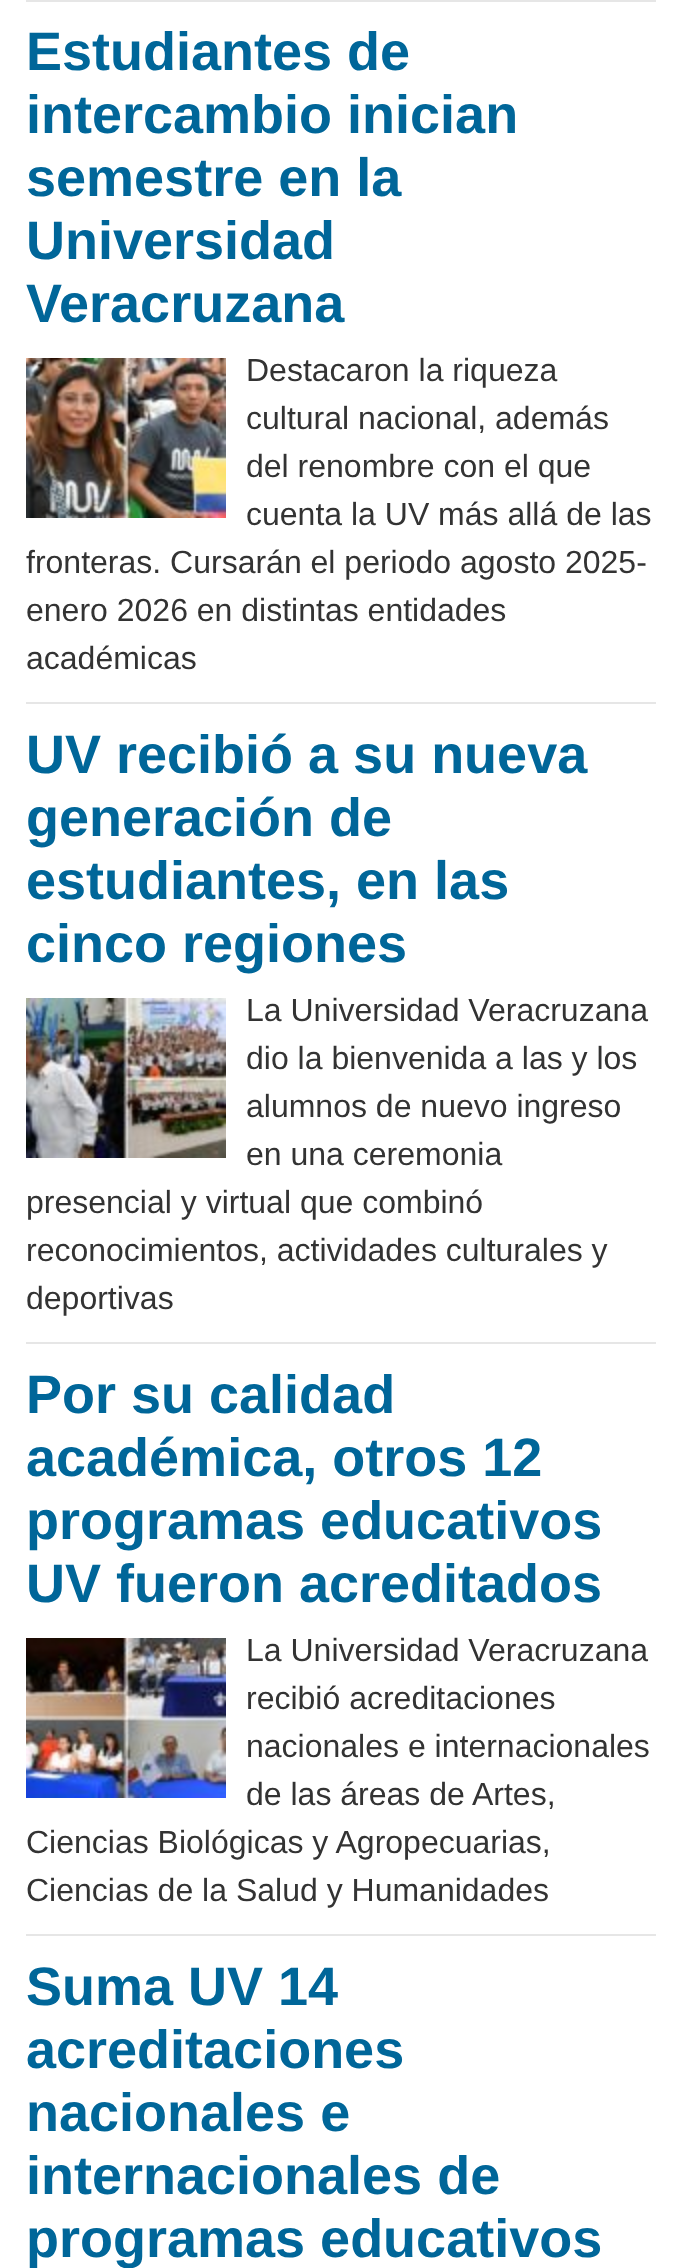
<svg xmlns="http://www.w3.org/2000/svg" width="682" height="2268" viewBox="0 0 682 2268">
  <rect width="100%" height="100%" fill="#ffffff"/>
  <rect x="26" y="0" width="630" height="2" fill="#e6e6e6"/>
  <rect x="26" y="702" width="630" height="2" fill="#e6e6e6"/>
  <text x="26" y="70" font-family="Liberation Sans" font-size="54" font-weight="bold" fill="#006699">Estudiantes de</text>
  <text x="26" y="133" font-family="Liberation Sans" font-size="54" font-weight="bold" fill="#006699">intercambio inician</text>
  <text x="26" y="196" font-family="Liberation Sans" font-size="54" font-weight="bold" fill="#006699">semestre en la</text>
  <text x="26" y="259" font-family="Liberation Sans" font-size="54" font-weight="bold" fill="#006699">Universidad</text>
  <text x="26" y="322" font-family="Liberation Sans" font-size="54" font-weight="bold" fill="#006699">Veracruzana</text>
  <text x="246" y="381" font-family="Liberation Sans" font-size="32" fill="#333333">Destacaron la riqueza</text>
  <text x="246" y="429" font-family="Liberation Sans" font-size="32" fill="#333333">cultural nacional, además</text>
  <text x="246" y="477" font-family="Liberation Sans" font-size="32" fill="#333333">del renombre con el que</text>
  <text x="246" y="525" font-family="Liberation Sans" font-size="32" fill="#333333">cuenta la UV más allá de las</text>
  <text x="26" y="573" font-family="Liberation Sans" font-size="32" fill="#333333">fronteras. Cursarán el periodo agosto 2025-</text>
  <text x="26" y="621" font-family="Liberation Sans" font-size="32" fill="#333333">enero 2026 en distintas entidades</text>
  <text x="26" y="669" font-family="Liberation Sans" font-size="32" fill="#333333">académicas</text>
  <image x="26" y="358" width="200" height="160" href="img1.png"/>
  <rect x="26" y="1342" width="630" height="2" fill="#e6e6e6"/>
  <text x="26" y="773" font-family="Liberation Sans" font-size="54" font-weight="bold" fill="#006699">UV recibió a su nueva</text>
  <text x="26" y="836" font-family="Liberation Sans" font-size="54" font-weight="bold" fill="#006699">generación de</text>
  <text x="26" y="899" font-family="Liberation Sans" font-size="54" font-weight="bold" fill="#006699">estudiantes, en las</text>
  <text x="26" y="962" font-family="Liberation Sans" font-size="54" font-weight="bold" fill="#006699">cinco regiones</text>
  <text x="246" y="1021" font-family="Liberation Sans" font-size="32" fill="#333333">La Universidad Veracruzana</text>
  <text x="246" y="1069" font-family="Liberation Sans" font-size="32" fill="#333333">dio la bienvenida a las y los</text>
  <text x="246" y="1117" font-family="Liberation Sans" font-size="32" fill="#333333">alumnos de nuevo ingreso</text>
  <text x="246" y="1165" font-family="Liberation Sans" font-size="32" fill="#333333">en una ceremonia</text>
  <text x="26" y="1213" font-family="Liberation Sans" font-size="32" fill="#333333">presencial y virtual que combinó</text>
  <text x="26" y="1261" font-family="Liberation Sans" font-size="32" fill="#333333">reconocimientos, actividades culturales y</text>
  <text x="26" y="1309" font-family="Liberation Sans" font-size="32" fill="#333333">deportivas</text>
  <image x="26" y="998" width="200" height="160" href="img2.png"/>
  <rect x="26" y="1934" width="630" height="2" fill="#e6e6e6"/>
  <text x="26" y="1413" font-family="Liberation Sans" font-size="54" font-weight="bold" fill="#006699">Por su calidad</text>
  <text x="26" y="1476" font-family="Liberation Sans" font-size="54" font-weight="bold" fill="#006699">académica, otros 12</text>
  <text x="26" y="1539" font-family="Liberation Sans" font-size="54" font-weight="bold" fill="#006699">programas educativos</text>
  <text x="26" y="1602" font-family="Liberation Sans" font-size="54" font-weight="bold" fill="#006699">UV fueron acreditados</text>
  <text x="246" y="1661" font-family="Liberation Sans" font-size="32" fill="#333333">La Universidad Veracruzana</text>
  <text x="246" y="1709" font-family="Liberation Sans" font-size="32" fill="#333333">recibió acreditaciones</text>
  <text x="246" y="1757" font-family="Liberation Sans" font-size="32" fill="#333333">nacionales e internacionales</text>
  <text x="246" y="1805" font-family="Liberation Sans" font-size="32" fill="#333333">de las áreas de Artes,</text>
  <text x="26" y="1853" font-family="Liberation Sans" font-size="32" fill="#333333">Ciencias Biológicas y Agropecuarias,</text>
  <text x="26" y="1901" font-family="Liberation Sans" font-size="32" fill="#333333">Ciencias de la Salud y Humanidades</text>
  <image x="26" y="1638" width="200" height="160" href="img3.png"/>
  <text x="26" y="2005" font-family="Liberation Sans" font-size="54" font-weight="bold" fill="#006699">Suma UV 14</text>
  <text x="26" y="2068" font-family="Liberation Sans" font-size="54" font-weight="bold" fill="#006699">acreditaciones</text>
  <text x="26" y="2131" font-family="Liberation Sans" font-size="54" font-weight="bold" fill="#006699">nacionales e</text>
  <text x="26" y="2194" font-family="Liberation Sans" font-size="54" font-weight="bold" fill="#006699">internacionales de</text>
  <text x="26" y="2257" font-family="Liberation Sans" font-size="54" font-weight="bold" fill="#006699">programas educativos</text>
</svg>
